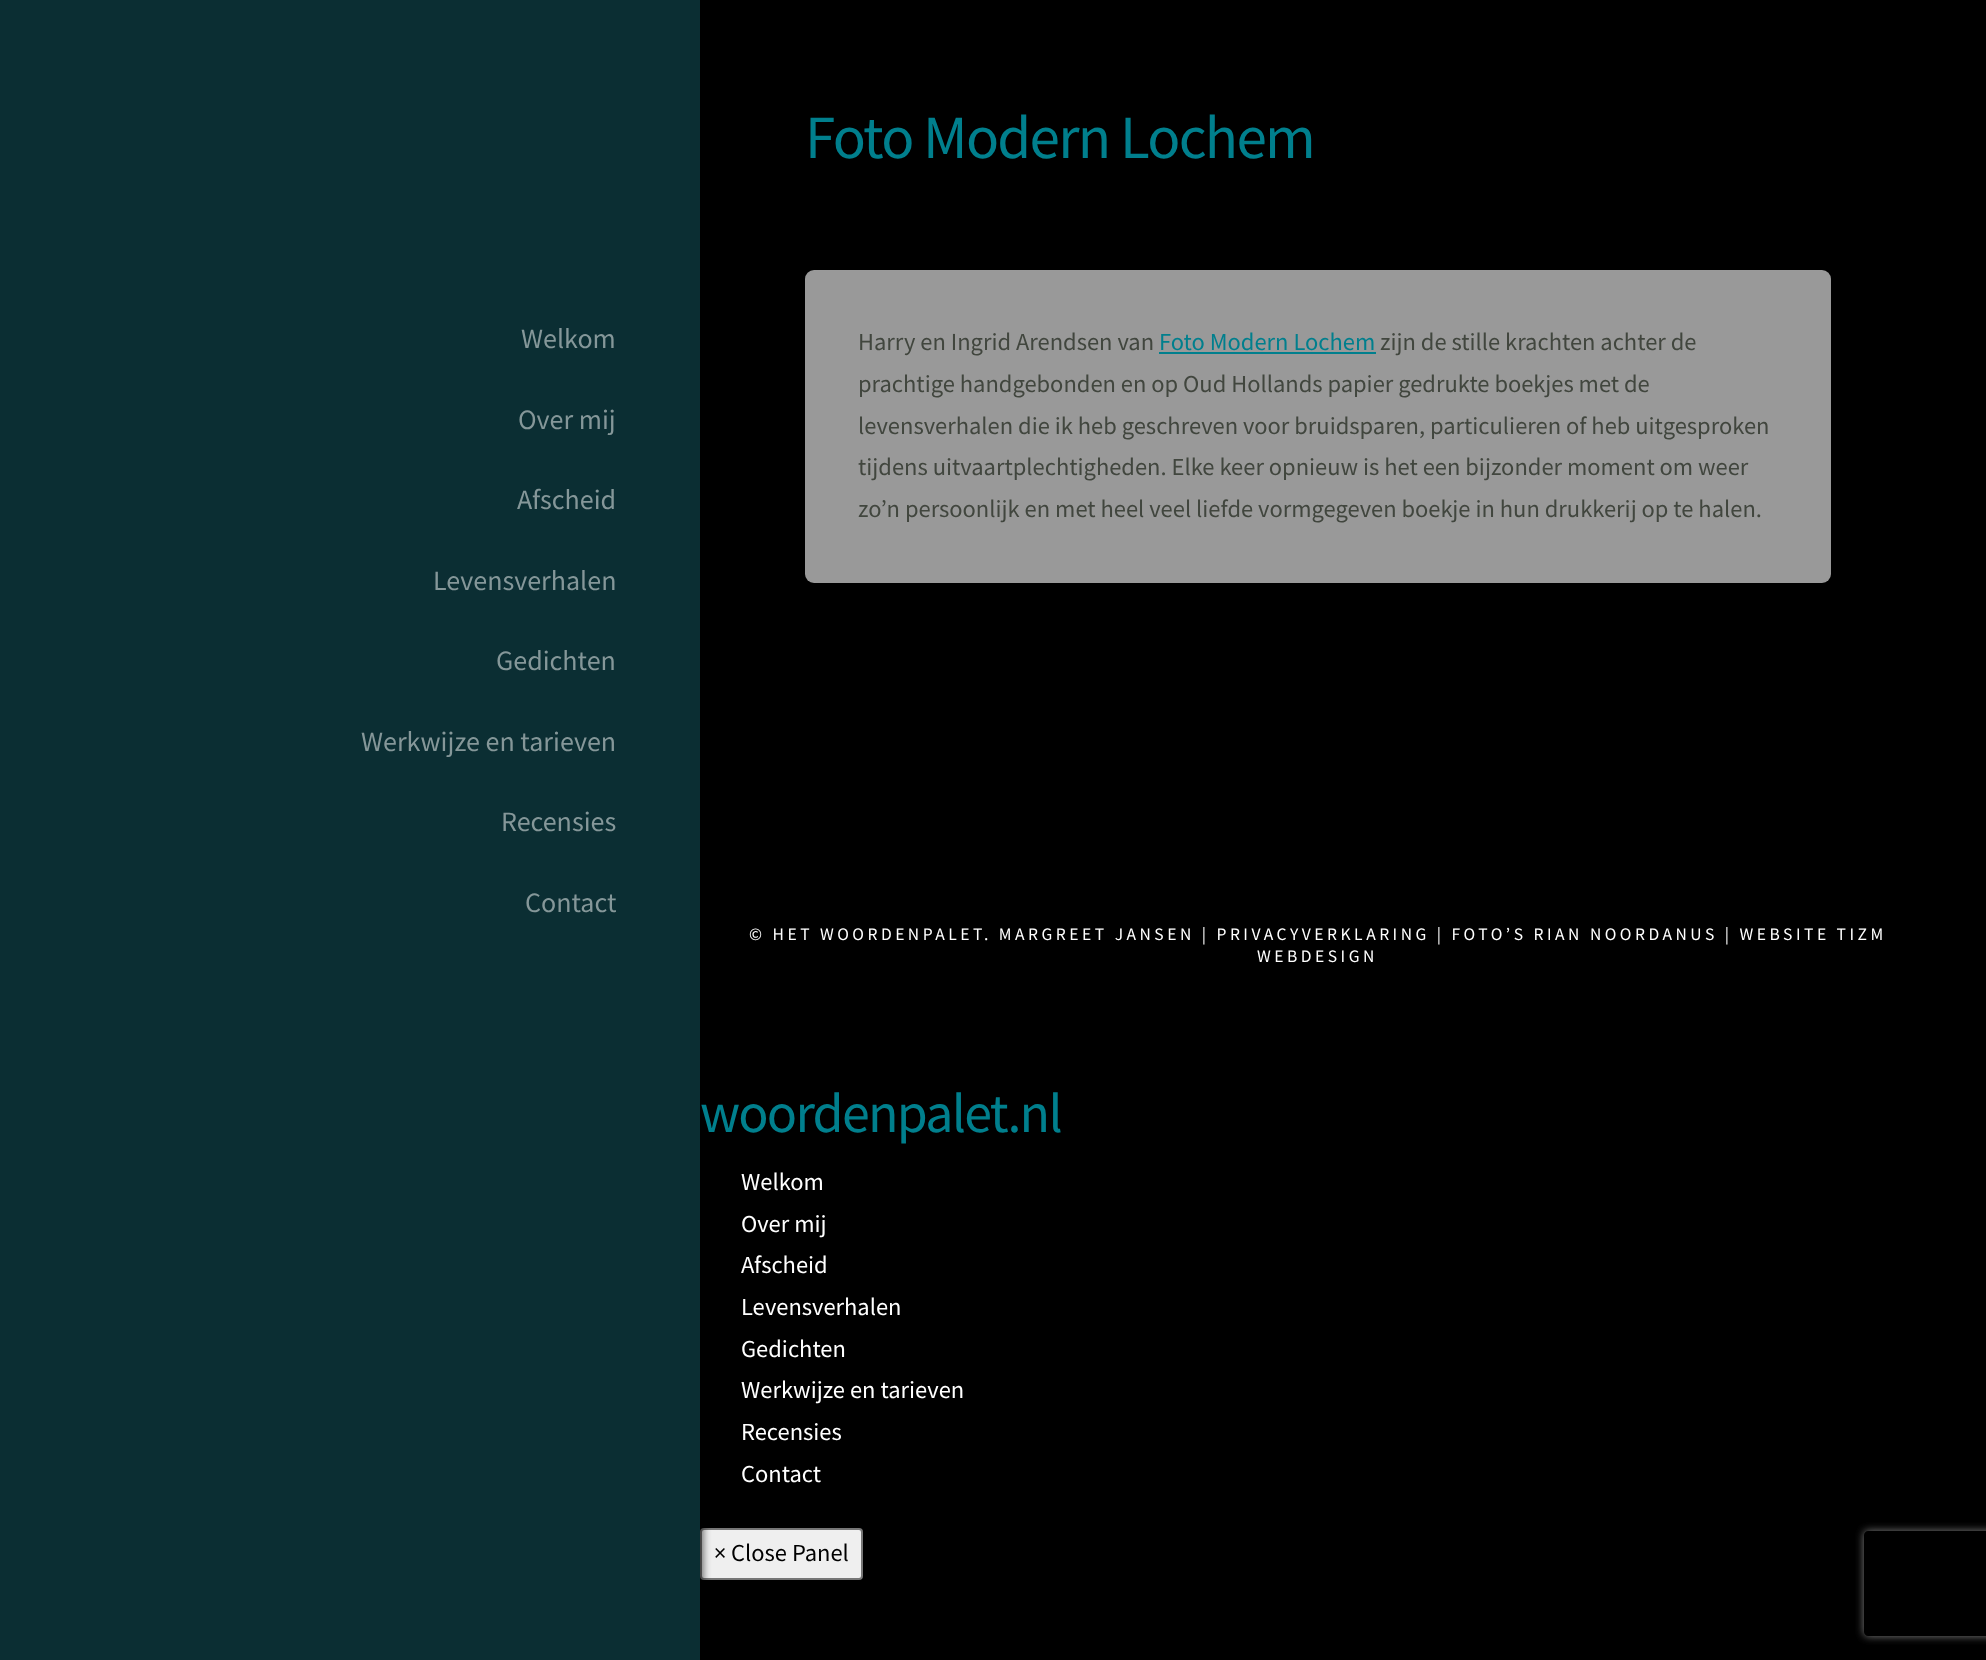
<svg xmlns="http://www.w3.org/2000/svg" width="1986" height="1660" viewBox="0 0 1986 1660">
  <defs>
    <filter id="blur1" x="-50%" y="-200%" width="200%" height="500%"><feGaussianBlur stdDeviation="3.5"/></filter>
    <clipPath id="clip1"><path d="M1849 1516H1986V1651H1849ZM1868 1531H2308C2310 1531 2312 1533 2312 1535V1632C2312 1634 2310 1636 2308 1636H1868C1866 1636 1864 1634 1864 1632V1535C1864 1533 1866 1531 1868 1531Z" clip-rule="evenodd"/></clipPath>
    <filter id="blur2" x="-50%" y="-200%" width="200%" height="500%"><feGaussianBlur stdDeviation="4.5"/></filter>
  </defs>
  <rect width="100%" height="100%" fill="#000000"/>
  <rect x="701" y="1529" width="161" height="50" rx="3" fill="#efefef" stroke="#767676" stroke-width="2"/>
  <rect x="4" y="0" width="700" height="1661" fill="#000000" fill-opacity="0.5" filter="url(#blur1)"/>
  <rect x="0" y="0" width="700" height="1660" fill="#0b2e33"/>
  <text x="521" y="348" font-family="Source Sans Pro" font-size="28" fill="#859799">Welkom</text>
  <text x="518" y="429" font-family="Source Sans Pro" font-size="28" fill="#859799">Over mij</text>
  <text x="517" y="509" font-family="Source Sans Pro" font-size="28" fill="#859799">Afscheid</text>
  <text x="433" y="590" font-family="Source Sans Pro" font-size="28" fill="#859799">Levensverhalen</text>
  <text x="496" y="670" font-family="Source Sans Pro" font-size="28" fill="#859799">Gedichten</text>
  <text x="361" y="751" font-family="Source Sans Pro" font-size="28" fill="#859799">Werkwijze en tarieven</text>
  <text x="501" y="831" font-family="Source Sans Pro" font-size="28" fill="#859799">Recensies</text>
  <text x="525" y="912" font-family="Source Sans Pro" font-size="28" fill="#859799">Contact</text>
  <text x="805" y="158" font-family="Source Sans Pro" font-size="61.25" letter-spacing="-1.75" fill="#007f8d">Foto Modern Lochem</text>
  <rect x="805" y="270" width="1026" height="313" rx="9" fill="#999999"/>
  <text x="858" y="350" font-family="Source Sans Pro" font-size="24.5" fill="#41463e">Harry en Ingrid Arendsen van</text>
  <text x="1159" y="350" font-family="Source Sans Pro" font-size="24.5" fill="#007f8d">Foto Modern Lochem</text>
  <rect x="1159" y="352" width="217" height="2" fill="#007f8d"/>
  <text x="1380" y="350" font-family="Source Sans Pro" font-size="24.5" fill="#41463e">zijn de stille krachten achter de</text>
  <text x="858" y="392" font-family="Source Sans Pro" font-size="24.5" fill="#41463e">prachtige handgebonden en op Oud Hollands papier gedrukte boekjes met de</text>
  <text x="858" y="434" font-family="Source Sans Pro" font-size="24.5" fill="#41463e">levensverhalen die ik heb geschreven voor bruidsparen, particulieren of heb uitgesproken</text>
  <text x="858" y="475" font-family="Source Sans Pro" font-size="24.5" fill="#41463e">tijdens uitvaartplechtigheden. Elke keer opnieuw is het een bijzonder moment om weer</text>
  <text x="858" y="517" font-family="Source Sans Pro" font-size="24.5" fill="#41463e">zo’n persoonlijk en met heel veel liefde vormgegeven boekje in hun drukkerij op te halen.</text>
  <text x="749" y="940" font-family="Source Sans Pro" font-size="17.5" letter-spacing="3.5" fill="#ffffff">© HET WOORDENPALET. MARGREET JANSEN | PRIVACYVERKLARING | FOTO’S RIAN NOORDANUS | WEBSITE TIZM</text>
  <text x="1257" y="962" font-family="Source Sans Pro" font-size="17.5" letter-spacing="3.5" fill="#ffffff">WEBDESIGN</text>
  <text x="700" y="1132" font-family="Source Sans Pro" font-size="56" letter-spacing="-1.75" fill="#007f8d">woordenpalet.nl</text>
  <text x="741" y="1190" font-family="Source Sans Pro" font-size="24.5" fill="#ffffff">Welkom</text>
  <text x="741" y="1232" font-family="Source Sans Pro" font-size="24.5" fill="#ffffff">Over mij</text>
  <text x="741" y="1273" font-family="Source Sans Pro" font-size="24.5" fill="#ffffff">Afscheid</text>
  <text x="741" y="1315" font-family="Source Sans Pro" font-size="24.5" fill="#ffffff">Levensverhalen</text>
  <text x="741" y="1357" font-family="Source Sans Pro" font-size="24.5" fill="#ffffff">Gedichten</text>
  <text x="741" y="1398" font-family="Source Sans Pro" font-size="24.5" fill="#ffffff">Werkwijze en tarieven</text>
  <text x="741" y="1440" font-family="Source Sans Pro" font-size="24.5" fill="#ffffff">Recensies</text>
  <text x="741" y="1482" font-family="Source Sans Pro" font-size="24.5" fill="#ffffff">Contact</text>
  <text x="714" y="1561" font-family="Source Sans Pro" font-size="24.5" fill="#000000">× Close Panel</text>
  <g clip-path="url(#clip1)">
    <rect x="1864" y="1531" width="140" height="105" rx="4" fill="#808080" filter="url(#blur2)"/>
  </g>
</svg>
